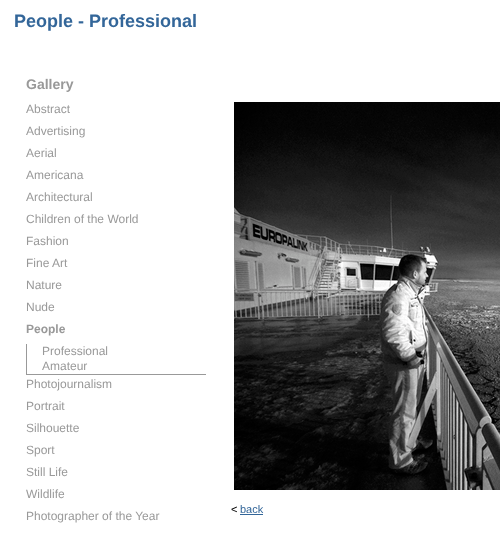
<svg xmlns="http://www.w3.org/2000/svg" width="500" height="542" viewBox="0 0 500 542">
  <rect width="100%" height="100%" fill="#ffffff"/>
  <text x="14" y="27" font-family="Liberation Sans" font-size="18" font-weight="bold" fill="#336699">People - Professional</text>
  <text x="26" y="89" font-family="Liberation Sans" font-size="14" font-weight="bold" fill="#999999">Gallery</text>
  <text x="26" y="113" font-family="Liberation Sans" font-size="12" fill="#999999">Abstract</text>
  <text x="26" y="135" font-family="Liberation Sans" font-size="12" fill="#999999">Advertising</text>
  <text x="26" y="157" font-family="Liberation Sans" font-size="12" fill="#999999">Aerial</text>
  <text x="26" y="179" font-family="Liberation Sans" font-size="12" fill="#999999">Americana</text>
  <text x="26" y="201" font-family="Liberation Sans" font-size="12" fill="#999999">Architectural</text>
  <text x="26" y="223" font-family="Liberation Sans" font-size="12" fill="#999999">Children of the World</text>
  <text x="26" y="245" font-family="Liberation Sans" font-size="12" fill="#999999">Fashion</text>
  <text x="26" y="267" font-family="Liberation Sans" font-size="12" fill="#999999">Fine Art</text>
  <text x="26" y="289" font-family="Liberation Sans" font-size="12" fill="#999999">Nature</text>
  <text x="26" y="311" font-family="Liberation Sans" font-size="12" fill="#999999">Nude</text>
  <text x="26" y="333" font-family="Liberation Sans" font-size="12" font-weight="bold" fill="#999999">People</text>
  <rect x="26" y="374" width="180" height="1" fill="#999999"/>
  <rect x="26" y="344" width="1" height="31" fill="#999999"/>
  <text x="42" y="355" font-family="Liberation Sans" font-size="12" fill="#999999">Professional</text>
  <text x="42" y="370" font-family="Liberation Sans" font-size="12" fill="#999999">Amateur</text>
  <text x="26" y="388" font-family="Liberation Sans" font-size="12" fill="#999999">Photojournalism</text>
  <text x="26" y="410" font-family="Liberation Sans" font-size="12" fill="#999999">Portrait</text>
  <text x="26" y="432" font-family="Liberation Sans" font-size="12" fill="#999999">Silhouette</text>
  <text x="26" y="454" font-family="Liberation Sans" font-size="12" fill="#999999">Sport</text>
  <text x="26" y="476" font-family="Liberation Sans" font-size="12" fill="#999999">Still Life</text>
  <text x="26" y="498" font-family="Liberation Sans" font-size="12" fill="#999999">Wildlife</text>
  <text x="26" y="520" font-family="Liberation Sans" font-size="12" fill="#999999">Photographer of the Year</text>
  <image x="234" y="102" width="266" height="388" href="img1.png"/>
  <text x="231" y="513" font-family="Liberation Sans" font-size="11" fill="#000000">&lt;</text>
  <text x="240" y="513" font-family="Liberation Sans" font-size="11" fill="#336699">back</text>
  <rect x="240" y="514" width="23" height="1" fill="#336699"/>
</svg>
